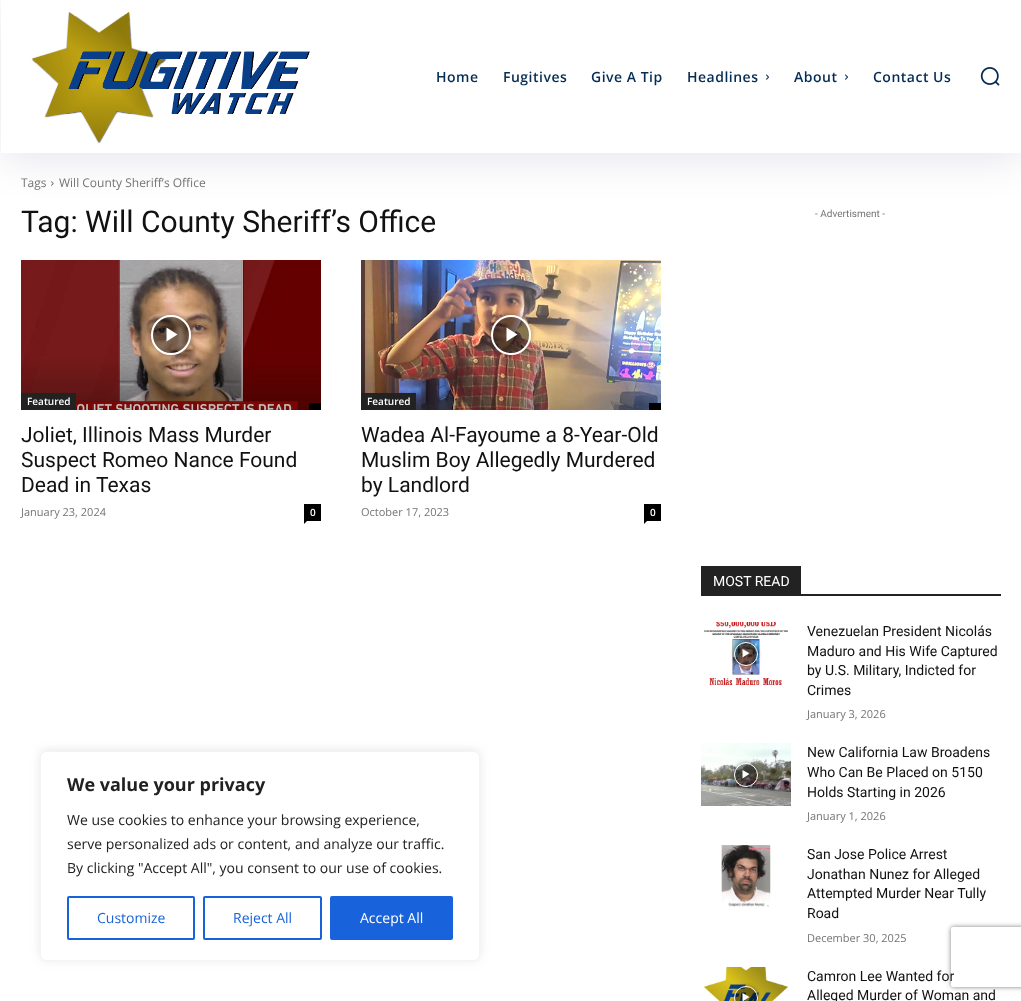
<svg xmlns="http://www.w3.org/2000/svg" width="1021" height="1001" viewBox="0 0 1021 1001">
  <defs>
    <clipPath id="clip1"><path d="M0 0H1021V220H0ZM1 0H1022V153H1Z" clip-rule="evenodd"/></clipPath>
    <filter id="blur1" x="-50%" y="-200%" width="200%" height="500%"><feGaussianBlur stdDeviation="20"/></filter>
    <clipPath id="clip2"><path d="M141 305H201V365H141ZM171 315C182 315 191 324 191 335C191 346 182 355 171 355C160 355 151 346 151 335C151 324 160 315 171 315Z" clip-rule="evenodd"/></clipPath>
    <filter id="blur2" x="-50%" y="-200%" width="200%" height="500%"><feGaussianBlur stdDeviation="3"/></filter>
    <clipPath id="clip3"><path d="M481 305H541V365H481ZM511 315C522 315 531 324 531 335C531 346 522 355 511 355C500 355 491 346 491 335C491 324 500 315 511 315Z" clip-rule="evenodd"/></clipPath>
    <clipPath id="clip4"><path d="M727 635H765V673H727ZM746 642C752.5 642 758 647.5 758 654C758 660.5 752.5 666 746 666C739.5 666 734 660.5 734 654C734 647.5 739.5 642 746 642Z" clip-rule="evenodd"/></clipPath>
    <filter id="blur3" x="-50%" y="-200%" width="200%" height="500%"><feGaussianBlur stdDeviation="2"/></filter>
    <clipPath id="clip5"><path d="M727 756H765V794H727ZM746 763C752.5 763 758 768.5 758 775C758 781.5 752.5 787 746 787C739.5 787 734 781.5 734 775C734 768.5 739.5 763 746 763Z" clip-rule="evenodd"/></clipPath>
    <clipPath id="clip6"><path d="M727 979H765V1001H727ZM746 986C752.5 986 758 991.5 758 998C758 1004.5 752.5 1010 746 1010C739.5 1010 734 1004.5 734 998C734 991.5 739.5 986 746 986Z" clip-rule="evenodd"/></clipPath>
    <filter id="blur4" x="-50%" y="-200%" width="200%" height="500%"><feGaussianBlur stdDeviation="5"/></filter>
    <clipPath id="clip7"><path d="M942 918H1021V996H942ZM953 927H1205C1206 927 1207 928 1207 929V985C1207 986 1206 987 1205 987H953C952 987 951 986 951 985V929C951 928 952 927 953 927Z" clip-rule="evenodd"/></clipPath>
    <filter id="blur5" x="-50%" y="-200%" width="200%" height="500%"><feGaussianBlur stdDeviation="2.5"/></filter>
  </defs>
  <rect width="100%" height="100%" fill="#ffffff"/>
  <image x="31" y="12" width="279" height="132" href="img1.png"/>
  <image x="51" y="181" width="3" height="5" href="img4.png"/>
  <g clip-path="url(#clip1)">
    <rect x="1" y="6" width="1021" height="153" fill="#020247" fill-opacity="0.1" filter="url(#blur1)"/>
  </g>
  <text x="436" y="82" font-family="Open Sans" font-size="14" font-weight="600" letter-spacing="0.5" fill="#052c54">Home</text>
  <text x="503" y="82" font-family="Open Sans" font-size="14" font-weight="600" letter-spacing="0.5" fill="#052c54">Fugitives</text>
  <text x="591" y="82" font-family="Open Sans" font-size="14" font-weight="600" letter-spacing="0.5" fill="#052c54">Give A Tip</text>
  <text x="687" y="82" font-family="Open Sans" font-size="14" font-weight="600" letter-spacing="0.5" fill="#052c54">Headlines</text>
  <image x="766" y="74" width="3" height="6" href="img2.png"/>
  <text x="794" y="82" font-family="Open Sans" font-size="14" font-weight="600" letter-spacing="0.5" fill="#052c54">About</text>
  <image x="845" y="74" width="3" height="6" href="img2.png"/>
  <text x="873" y="82" font-family="Open Sans" font-size="14" font-weight="600" letter-spacing="0.5" fill="#052c54">Contact Us</text>
  <image x="980" y="67" width="20" height="19" href="img3.png"/>
  <text x="21" y="187" font-family="Open Sans" font-size="12" fill="#747474">Tags</text>
  <text x="59" y="187" font-family="Open Sans" font-size="12" fill="#747474">Will County Sheriff’s Office</text>
  <text x="21" y="232" font-family="Roboto" font-size="30" fill="#111111">Tag: Will County Sheriff’s Office</text>
  <image x="21" y="260" width="300" height="150" href="img5.png"/>
  <g clip-path="url(#clip2)">
    <rect x="151" y="315" width="40" height="40" rx="20" fill="#000000" fill-opacity="0.4" filter="url(#blur2)"/>
  </g>
  <circle cx="171" cy="335" r="19" fill="#000000" fill-opacity="0.48" stroke="#ffffff" stroke-width="2"/>
  <path d="M166.5 327.5V341.5L177.5 334.5Z" fill="#ffffff"/>
  <rect x="21" y="393" width="55" height="17" fill="#222222"/>
  <text x="27" y="405" font-family="Open Sans" font-size="10" font-weight="600" fill="#ffffff">Featured</text>
  <rect x="309" y="403" width="12" height="7" fill="#000000"/>
  <text x="21" y="442" font-family="Roboto" font-size="21" fill="#111111">Joliet, Illinois Mass Murder</text>
  <text x="21" y="467" font-family="Roboto" font-size="21" fill="#111111">Suspect Romeo Nance Found</text>
  <text x="21" y="492" font-family="Roboto" font-size="21" fill="#111111">Dead in Texas</text>
  <text x="21" y="516" font-family="Open Sans" font-size="11" fill="#747474">January 23, 2024</text>
  <rect x="304" y="504" width="17" height="17" fill="#000000"/>
  <text x="310" y="516" font-family="Open Sans" font-size="10" font-weight="600" fill="#ffffff">0</text>
  <path d="M304 521H307L304 524Z" fill="#000000"/>
  <image x="361" y="260" width="300" height="150" href="img6.png"/>
  <g clip-path="url(#clip3)">
    <rect x="491" y="315" width="40" height="40" rx="20" fill="#000000" fill-opacity="0.4" filter="url(#blur2)"/>
  </g>
  <circle cx="511" cy="335" r="19" fill="#000000" fill-opacity="0.48" stroke="#ffffff" stroke-width="2"/>
  <path d="M506.5 327.5V341.5L517.5 334.5Z" fill="#ffffff"/>
  <rect x="361" y="393" width="55" height="17" fill="#222222"/>
  <text x="367" y="405" font-family="Open Sans" font-size="10" font-weight="600" fill="#ffffff">Featured</text>
  <rect x="649" y="403" width="12" height="7" fill="#000000"/>
  <text x="361" y="442" font-family="Roboto" font-size="21" fill="#111111">Wadea Al-Fayoume a 8-Year-Old</text>
  <text x="361" y="467" font-family="Roboto" font-size="21" fill="#111111">Muslim Boy Allegedly Murdered</text>
  <text x="361" y="492" font-family="Roboto" font-size="21" fill="#111111">by Landlord</text>
  <text x="361" y="516" font-family="Open Sans" font-size="11" fill="#747474">October 17, 2023</text>
  <rect x="644" y="504" width="17" height="17" fill="#000000"/>
  <text x="650" y="516" font-family="Open Sans" font-size="10" font-weight="600" fill="#ffffff">0</text>
  <path d="M644 521H647L644 524Z" fill="#000000"/>
  <text x="815" y="217" font-family="Roboto" font-size="10" fill="#747474">- Advertisment -</text>
  <rect x="701" y="594" width="300" height="2" fill="#222222"/>
  <rect x="701" y="566" width="100" height="28" fill="#222222"/>
  <text x="713" y="586" font-family="Roboto" font-size="14" fill="#ffffff">MOST READ</text>
  <image x="704" y="622" width="84" height="63" href="img7.png"/>
  <g clip-path="url(#clip4)">
    <rect x="734" y="642" width="24" height="24" rx="12" fill="#000000" fill-opacity="0.4" filter="url(#blur3)"/>
  </g>
  <circle cx="746" cy="654" r="11.5" fill="#000000" fill-opacity="0.48" stroke="#ffffff"/>
  <path d="M742.5 649V657.5L749.5 653Z" fill="#ffffff"/>
  <text x="807" y="636" font-family="Roboto" font-size="14" fill="#111111">Venezuelan President Nicolás</text>
  <text x="807" y="656" font-family="Roboto" font-size="14" fill="#111111">Maduro and His Wife Captured</text>
  <text x="807" y="675" font-family="Roboto" font-size="14" fill="#111111">by U.S. Military, Indicted for</text>
  <text x="807" y="695" font-family="Roboto" font-size="14" fill="#111111">Crimes</text>
  <text x="807" y="718" font-family="Open Sans" font-size="11" fill="#747474">January 3, 2026</text>
  <image x="701" y="743" width="90" height="63" href="img8.png"/>
  <g clip-path="url(#clip5)">
    <rect x="734" y="763" width="24" height="24" rx="12" fill="#000000" fill-opacity="0.4" filter="url(#blur3)"/>
  </g>
  <circle cx="746" cy="775" r="11.5" fill="#000000" fill-opacity="0.48" stroke="#ffffff"/>
  <path d="M742.5 770V778.5L749.5 774Z" fill="#ffffff"/>
  <text x="807" y="757" font-family="Roboto" font-size="14" fill="#111111">New California Law Broadens</text>
  <text x="807" y="777" font-family="Roboto" font-size="14" fill="#111111">Who Can Be Placed on 5150</text>
  <text x="807" y="797" font-family="Roboto" font-size="14" fill="#111111">Holds Starting in 2026</text>
  <text x="807" y="820" font-family="Open Sans" font-size="11" fill="#747474">January 1, 2026</text>
  <image x="704" y="845" width="84" height="63" href="img9.png"/>
  <text x="807" y="859" font-family="Roboto" font-size="14" fill="#111111">San Jose Police Arrest</text>
  <text x="807" y="879" font-family="Roboto" font-size="14" fill="#111111">Jonathan Nunez for Alleged</text>
  <text x="807" y="898" font-family="Roboto" font-size="14" fill="#111111">Attempted Murder Near Tully</text>
  <text x="807" y="918" font-family="Roboto" font-size="14" fill="#111111">Road</text>
  <text x="807" y="942" font-family="Open Sans" font-size="11" fill="#747474">December 30, 2025</text>
  <image x="704" y="967" width="84" height="34" href="img10.png"/>
  <g clip-path="url(#clip6)">
    <rect x="734" y="986" width="24" height="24" rx="12" fill="#000000" fill-opacity="0.4" filter="url(#blur3)"/>
  </g>
  <circle cx="746" cy="998" r="11.5" fill="#000000" fill-opacity="0.48" stroke="#ffffff"/>
  <path d="M742.5 993V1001.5L749.5 997Z" fill="#ffffff"/>
  <text x="807" y="981" font-family="Roboto" font-size="14" fill="#111111">Camron Lee Wanted for</text>
  <text x="807" y="1000" font-family="Roboto" font-size="14" fill="#111111">Alleged Murder of Woman and</text>
  <rect x="40" y="750" width="440" height="210" rx="6" fill="#acabab" fill-opacity="0.3" filter="url(#blur4)"/>
  <rect x="40.5" y="751.5" width="439" height="209" rx="5.5" fill="#ffffff" stroke="#f4f4f4"/>
  <text x="67" y="791" font-family="Open Sans" font-size="18" font-weight="bold" fill="#212121">We value your privacy</text>
  <text x="67" y="825" font-family="Open Sans" font-size="14" fill="#212121">We use cookies to enhance your browsing experience,</text>
  <text x="67" y="849" font-family="Open Sans" font-size="14" fill="#212121">serve personalized ads or content, and analyze our traffic.</text>
  <text x="67" y="873" font-family="Open Sans" font-size="14" fill="#212121">By clicking "Accept All", you consent to our use of cookies.</text>
  <rect x="68" y="897" width="126" height="42" rx="1" fill="none" stroke="#1863dc" stroke-width="2"/>
  <text x="97" y="923" font-family="Open Sans" font-size="14" fill="#1863dc">Customize</text>
  <rect x="204" y="897" width="117" height="42" rx="1" fill="none" stroke="#1863dc" stroke-width="2"/>
  <text x="233" y="923" font-family="Open Sans" font-size="14" fill="#1863dc">Reject All</text>
  <rect x="331" y="897" width="121" height="42" rx="1" fill="#1863dc" stroke="#1863dc" stroke-width="2"/>
  <text x="360" y="923" font-family="Open Sans" font-size="14" fill="#ffffff">Accept All</text>
  <g clip-path="url(#clip7)">
    <rect x="951" y="927" width="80" height="60" rx="2" fill="#808080" filter="url(#blur5)"/>
  </g>
</svg>
